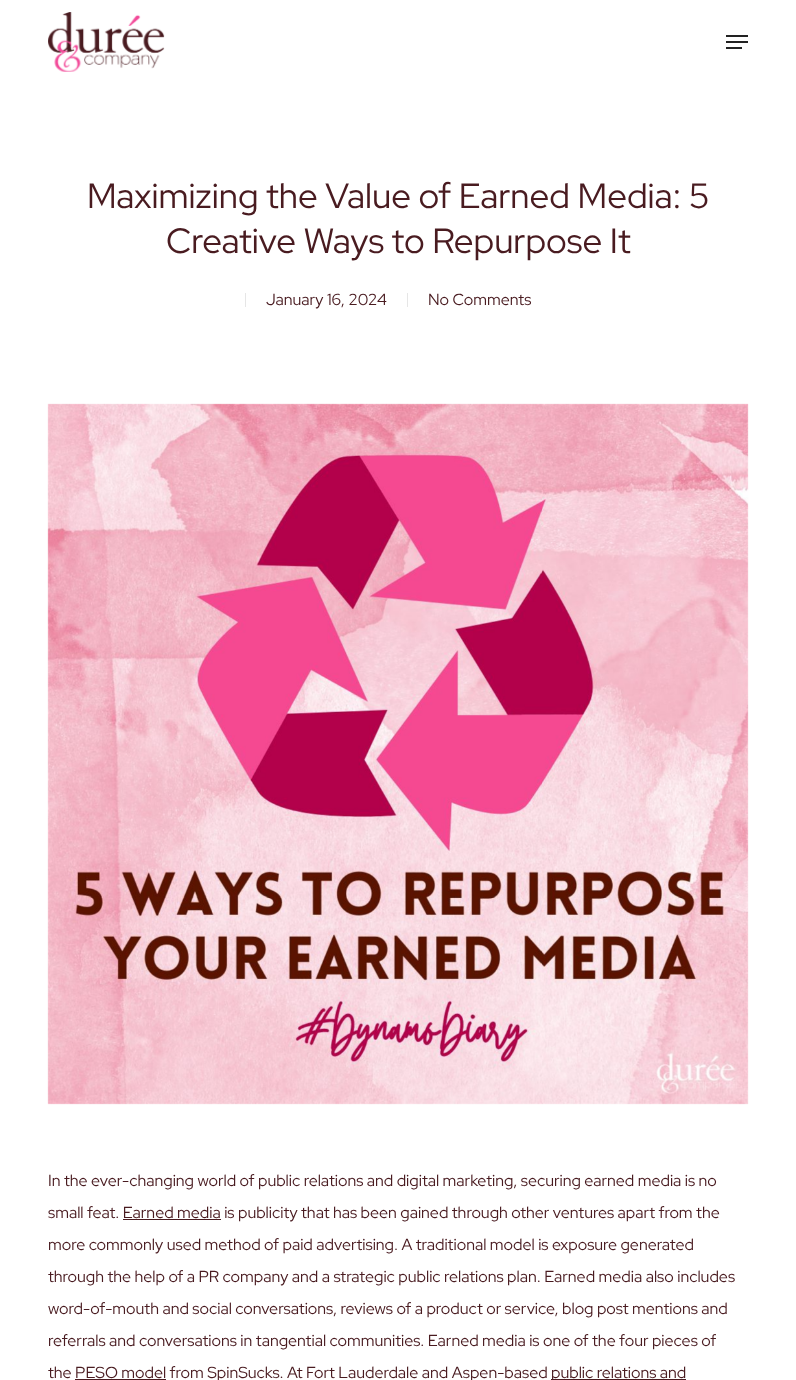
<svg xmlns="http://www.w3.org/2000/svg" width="796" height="1380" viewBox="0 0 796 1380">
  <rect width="100%" height="100%" fill="#ffffff"/>
  <image x="48" y="12" width="117" height="60" href="img1.png"/>
  <rect x="726" y="35" width="22" height="2" fill="#222222"/>
  <rect x="726" y="47" width="16" height="2" fill="#222222"/>
  <rect x="726" y="41" width="22" height="2" fill="#222222"/>
  <text x="87" y="208" font-family="Red Hat Display" font-size="35" fill="#491b20">Maximizing the Value of Earned Media: 5</text>
  <text x="166" y="253" font-family="Red Hat Display" font-size="35" fill="#491b20">Creative Ways to Repurpose It</text>
  <rect x="245" y="293" width="1" height="14" fill="#e6e6e6"/>
  <text x="266" y="305" font-family="Red Hat Display" font-size="16" fill="#491b20">January 16, 2024</text>
  <rect x="407" y="293" width="1" height="14" fill="#e6e6e6"/>
  <text x="428" y="305" font-family="Red Hat Display" font-size="16" fill="#491b20">No Comments</text>
  <image x="47" y="403" width="702" height="702" href="img2.png"/>
  <text x="48" y="1186" font-family="Red Hat Display" font-size="16" fill="#491b20">In the ever-changing world of public relations and digital marketing, securing earned media is no</text>
  <text x="48" y="1218" font-family="Red Hat Display" font-size="16" fill="#491b20">small feat. Earned media is publicity that has been gained through other ventures apart from the</text>
  <rect x="123" y="1219" width="98" height="1" fill="#491b20"/>
  <text x="48" y="1250" font-family="Red Hat Display" font-size="16" fill="#491b20">more commonly used method of paid advertising. A traditional model is exposure generated</text>
  <text x="48" y="1282" font-family="Red Hat Display" font-size="16" fill="#491b20">through the help of a PR company and a strategic public relations plan. Earned media also includes</text>
  <text x="48" y="1314" font-family="Red Hat Display" font-size="16" fill="#491b20">word-of-mouth and social conversations, reviews of a product or service, blog post mentions and</text>
  <text x="48" y="1346" font-family="Red Hat Display" font-size="16" fill="#491b20">referrals and conversations in tangential communities. Earned media is one of the four pieces of</text>
  <text x="48" y="1378" font-family="Red Hat Display" font-size="16" fill="#491b20">the PESO model from SpinSucks. At Fort Lauderdale and Aspen-based</text>
  <rect x="551" y="1379" width="135" height="1" fill="#491b20"/>
  <text x="551" y="1378" font-family="Red Hat Display" font-size="16" fill="#491b20">public relations and</text>
  <rect x="75" y="1379" width="91" height="1" fill="#491b20"/>
</svg>
